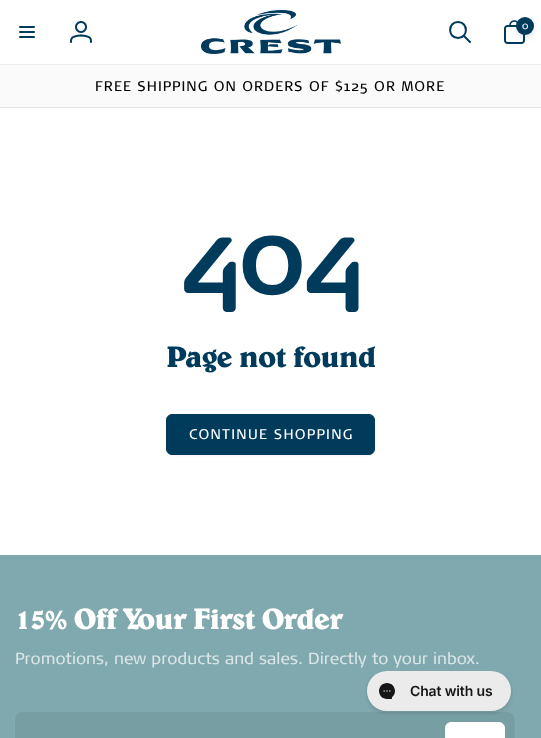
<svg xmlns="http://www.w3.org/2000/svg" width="541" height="738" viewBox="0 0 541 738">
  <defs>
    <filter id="blur1" x="-50%" y="-200%" width="200%" height="500%"><feGaussianBlur stdDeviation="2"/></filter>
    <filter id="blur2" x="-50%" y="-200%" width="200%" height="500%"><feGaussianBlur stdDeviation="3"/></filter>
    <filter id="blur3" x="-50%" y="-200%" width="200%" height="500%"><feGaussianBlur stdDeviation="1"/></filter>
    <filter id="blur4" x="-50%" y="-200%" width="200%" height="500%"><feGaussianBlur stdDeviation="1.5"/></filter>
  </defs>
  <rect width="100%" height="100%" fill="#ffffff"/>
  <rect x="0" y="64" width="541" height="1" fill="#ebeff2"/>
  <image x="19" y="26" width="16" height="12" href="img1.png"/>
  <image x="70" y="21" width="22" height="22" href="img2.png"/>
  <image x="201" y="10" width="140" height="44" href="img3.png"/>
  <path d="M470 42L463.5 35.5M458 38C468.5 38 468.5 22 458 22C447.5 22 447.5 38 458 38Z" fill="none" stroke="#003b5c" stroke-width="2" stroke-linecap="round" stroke-linejoin="round"/>
  <image x="504" y="20" width="21" height="24" href="img4.png"/>
  <rect x="517" y="20" width="16" height="16" rx="8" fill="#003b5c" fill-opacity="0.06" filter="url(#blur1)"/>
  <rect x="517" y="22" width="16" height="16" rx="8" fill="#003b5c" fill-opacity="0.1" filter="url(#blur2)"/>
  <circle cx="525" cy="26" r="9" fill="#003b5c"/>
  <text x="522" y="29" font-family="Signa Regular" font-size="10" fill="#ffffff">0</text>
  <rect x="0" y="65" width="541" height="42" fill="#fafafa"/>
  <rect x="0" y="107" width="541" height="1" fill="#e6e6e6"/>
  <text x="95" y="91" font-family="Signa Regular" font-size="14" letter-spacing="1" fill="#000000">FREE SHIPPING ON ORDERS OF $125 OR MORE</text>
  <text x="180" y="293" font-family="Signa Regular" font-size="100" font-weight="bold" fill="#003b5c">404</text>
  <text x="166" y="367" font-family="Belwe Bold" font-size="30" font-weight="bold" letter-spacing="-0.9" fill="#003b5c">Page not found</text>
  <rect x="166" y="415" width="209" height="41" rx="6" fill="#003b5c" fill-opacity="0.05" filter="url(#blur3)"/>
  <rect x="166.5" y="414.5" width="208" height="40" rx="5.5" fill="#003b5c" stroke="#003b5c"/>
  <text x="189" y="439" font-family="Signa Regular" font-size="14" letter-spacing="1.25" fill="#ffffff">CONTINUE SHOPPING</text>
  <rect x="0" y="555" width="541" height="183" fill="#7fa9ae"/>
  <text x="15" y="629" font-family="Belwe Bold" font-size="30" font-weight="bold" letter-spacing="-0.9" fill="#ffffff">15% Off Your First Order</text>
  <text x="15" y="664" font-family="Signa Regular" font-size="16" fill="#d9e5e7">Promotions, new products and sales. Directly to your inbox.</text>
  <rect x="15" y="713" width="500" height="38" rx="8" fill="#ffffff" fill-opacity="0.1" filter="url(#blur4)"/>
  <rect x="15" y="712" width="500" height="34" rx="8" fill="#779ea2"/>
  <rect x="445.5" y="722.5" width="59" height="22" rx="5.5" fill="#ffffff" stroke="#ffffff"/>
  <image x="365" y="671" width="148" height="44" href="img5.png"/>
</svg>
